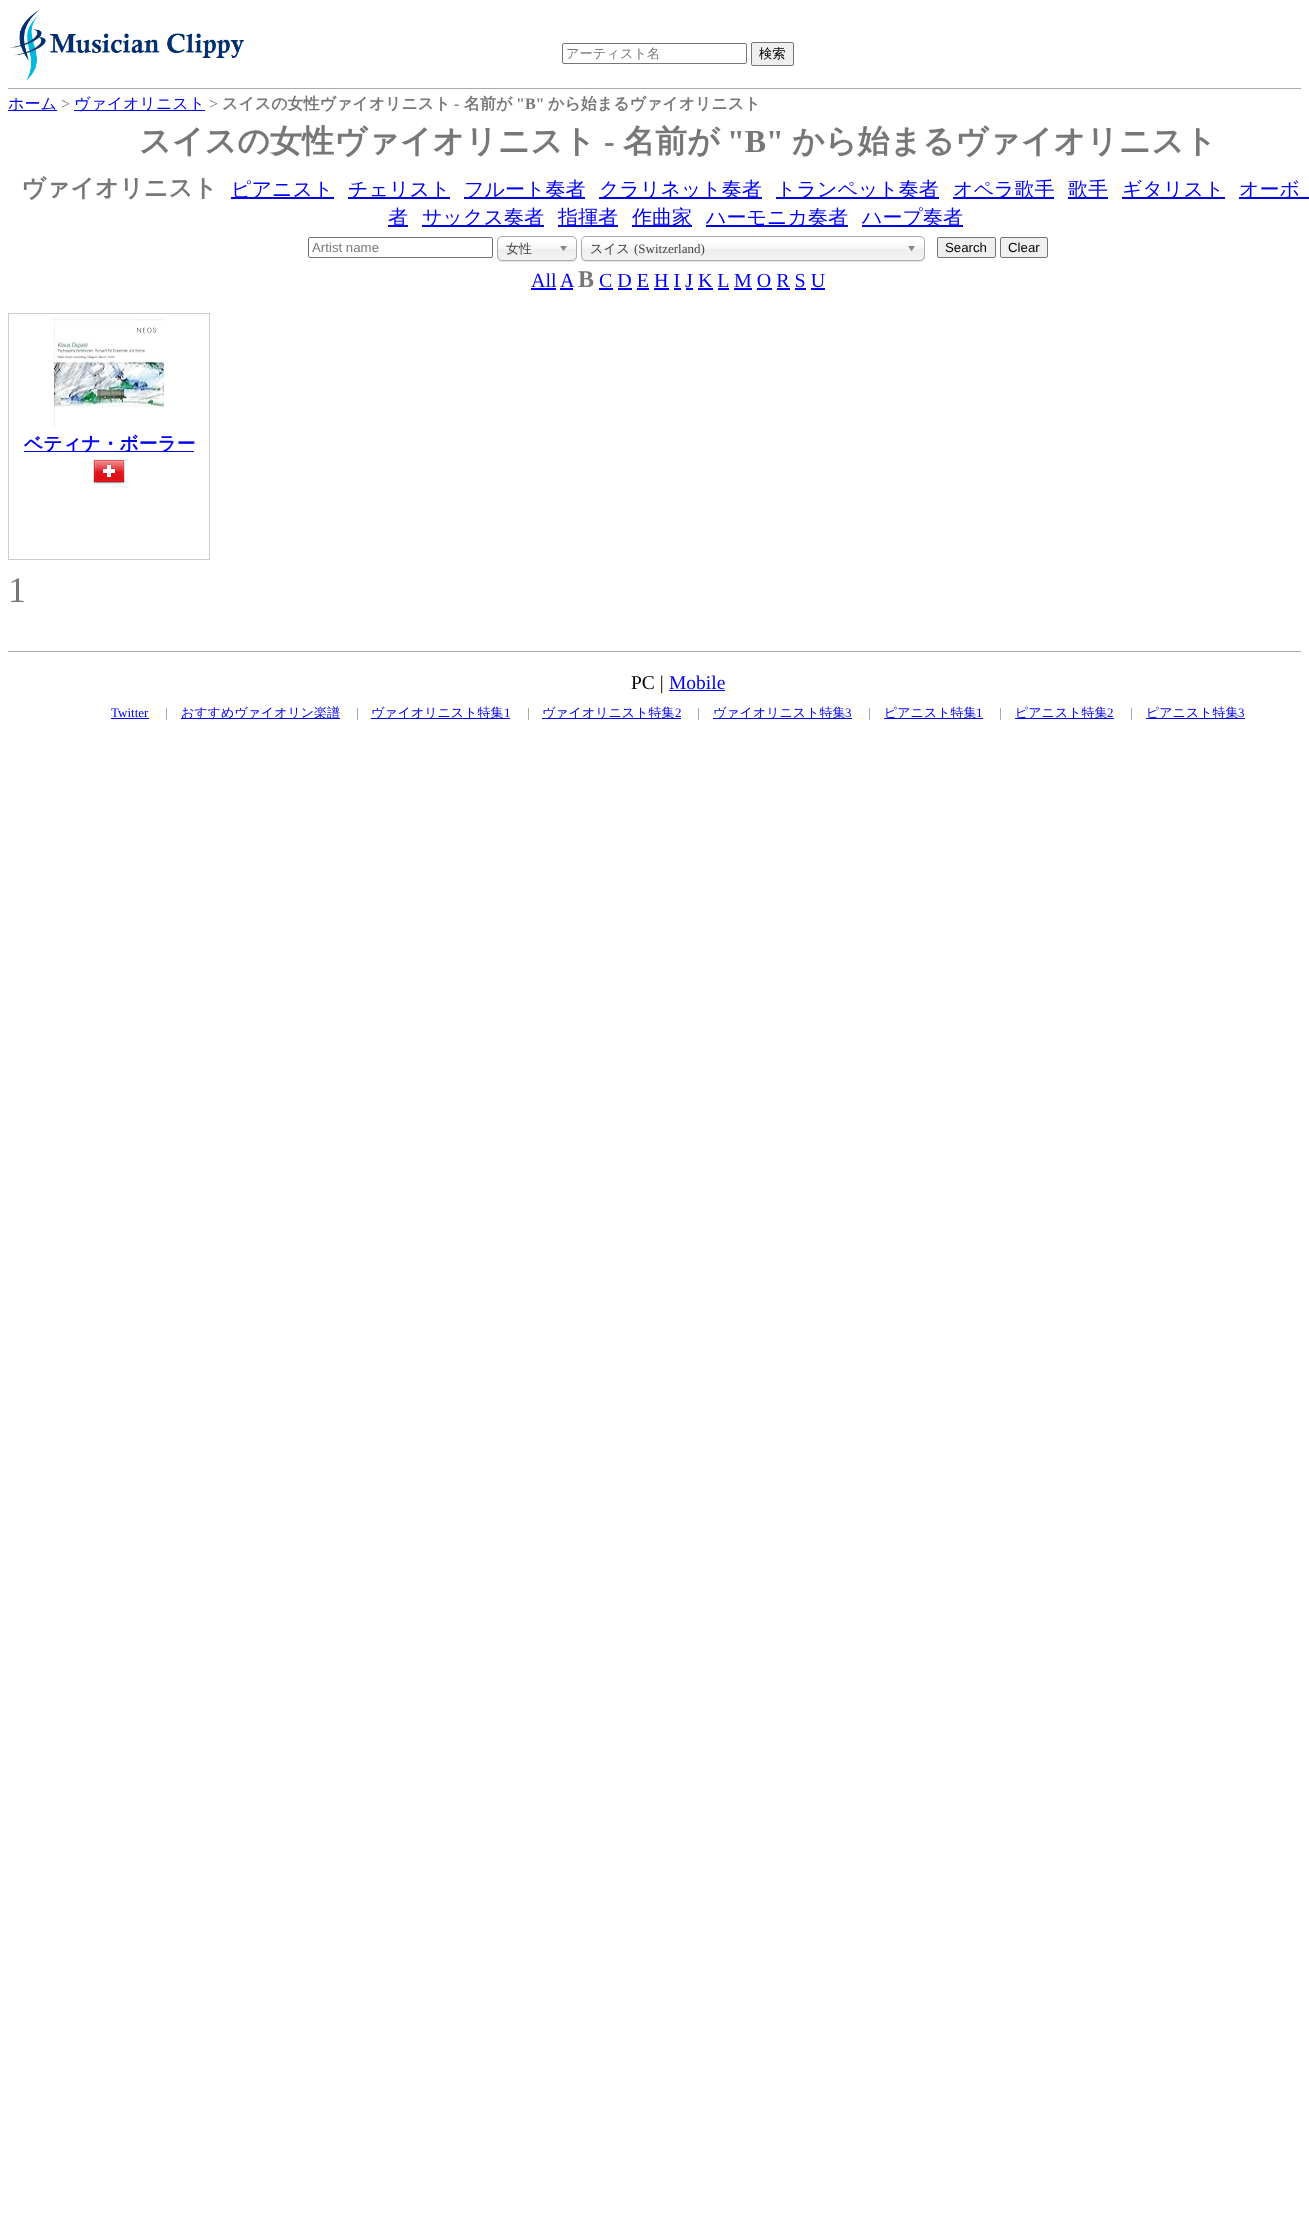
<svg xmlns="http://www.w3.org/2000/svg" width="1309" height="2227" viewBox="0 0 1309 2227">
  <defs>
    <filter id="blur1" x="-50%" y="-200%" width="200%" height="500%"><feGaussianBlur stdDeviation="0.5"/></filter>
    <linearGradient id="g1" gradientUnits="userSpaceOnUse" x1="537" y1="237" x2="537" y2="260"><stop offset="0.2" stop-color="#ffffff"/><stop offset="0.5" stop-color="#f6f6f6"/><stop offset="0.52" stop-color="#eeeeee"/><stop offset="1" stop-color="#f4f4f4"/></linearGradient>
    <linearGradient id="g2" gradientUnits="userSpaceOnUse" x1="753" y1="237" x2="753" y2="260"><stop offset="0.2" stop-color="#ffffff"/><stop offset="0.5" stop-color="#f6f6f6"/><stop offset="0.52" stop-color="#eeeeee"/><stop offset="1" stop-color="#f4f4f4"/></linearGradient>
  </defs>
  <rect width="100%" height="100%" fill="#ffffff"/>
  <rect x="8" y="88" width="1293" height="1" fill="#aaaaaa"/>
  <image x="10" y="9" width="235" height="72" href="img1.png"/>
  <rect x="562.5" y="43.5" width="184" height="20" rx="1.5" fill="none" stroke="#767676"/>
  <text x="566" y="58" font-family="WenQuanYi Zen Hei" font-size="13.25" font-weight="500" fill="#777777">アーティスト名</text>
  <rect x="751.5" y="42.5" width="42" height="23" rx="1.5" fill="#efefef" stroke="#767676"/>
  <text x="759" y="58" font-family="WenQuanYi Zen Hei" font-size="13.25" font-weight="500" fill="#000000">検索</text>
  <rect x="8" y="110" width="49" height="1" fill="#0000ee"/>
  <text x="8" y="109" font-family="WenQuanYi Zen Hei" font-size="16" font-weight="500" fill="#0000ee">ホーム</text>
  <text x="61" y="109" font-family="Liberation Serif" font-size="16" fill="#777777">&gt;</text>
  <rect x="74" y="110" width="131" height="1" fill="#0000ee"/>
  <text x="74" y="109" font-family="WenQuanYi Zen Hei" font-size="16" font-weight="500" fill="#0000ee">ヴァイオリニスト</text>
  <text x="209" y="109" font-family="Liberation Serif" font-size="16" fill="#777777">&gt;</text>
  <text x="222" y="109" font-family="WenQuanYi Zen Hei" font-size="16" font-weight="bold" fill="#777777">スイスの女性ヴァイオリニスト</text>
  <text x="454" y="109" font-family="Liberation Serif" font-size="16" font-weight="bold" fill="#777777">-</text>
  <text x="464" y="109" font-family="WenQuanYi Zen Hei" font-size="16" font-weight="bold" fill="#777777">名前が</text>
  <text x="516" y="109" font-family="Liberation Serif" font-size="16" font-weight="bold" fill="#777777">"B"</text>
  <text x="548" y="109" font-family="WenQuanYi Zen Hei" font-size="16" font-weight="bold" fill="#777777">から始まるヴァイオリニスト</text>
  <text x="139" y="152" font-family="WenQuanYi Zen Hei" font-size="32" font-weight="bold" fill="#777777">スイスの女性ヴァイオリニスト</text>
  <text x="604" y="152" font-family="Liberation Serif" font-size="32" font-weight="bold" fill="#777777">-</text>
  <text x="623" y="152" font-family="WenQuanYi Zen Hei" font-size="32" font-weight="bold" fill="#777777">名前が</text>
  <text x="727" y="152" font-family="Liberation Serif" font-size="32" font-weight="bold" fill="#777777">"B"</text>
  <text x="792" y="152" font-family="WenQuanYi Zen Hei" font-size="32" font-weight="bold" fill="#777777">から始まるヴァイオリニスト</text>
  <text x="21" y="196" font-family="WenQuanYi Zen Hei" font-size="24" font-weight="bold" fill="#777777">ヴァイオリニスト</text>
  <rect x="231" y="197" width="103" height="2" fill="#0000ee"/>
  <text x="231" y="196" font-family="WenQuanYi Zen Hei" font-size="20" font-weight="500" fill="#0000ee">ピアニスト</text>
  <rect x="348" y="197" width="102" height="2" fill="#0000ee"/>
  <text x="348" y="196" font-family="WenQuanYi Zen Hei" font-size="20" font-weight="500" fill="#0000ee">チェリスト</text>
  <rect x="464" y="197" width="121" height="2" fill="#0000ee"/>
  <text x="464" y="196" font-family="WenQuanYi Zen Hei" font-size="20" font-weight="500" fill="#0000ee">フルート奏者</text>
  <rect x="599" y="197" width="163" height="2" fill="#0000ee"/>
  <text x="599" y="196" font-family="WenQuanYi Zen Hei" font-size="20" font-weight="500" fill="#0000ee">クラリネット奏者</text>
  <rect x="776" y="197" width="163" height="2" fill="#0000ee"/>
  <text x="776" y="196" font-family="WenQuanYi Zen Hei" font-size="20" font-weight="500" fill="#0000ee">トランペット奏者</text>
  <rect x="953" y="197" width="101" height="2" fill="#0000ee"/>
  <text x="953" y="196" font-family="WenQuanYi Zen Hei" font-size="20" font-weight="500" fill="#0000ee">オペラ歌手</text>
  <rect x="1068" y="197" width="40" height="2" fill="#0000ee"/>
  <text x="1068" y="196" font-family="WenQuanYi Zen Hei" font-size="20" font-weight="500" fill="#0000ee">歌手</text>
  <rect x="1122" y="197" width="103" height="2" fill="#0000ee"/>
  <text x="1122" y="196" font-family="WenQuanYi Zen Hei" font-size="20" font-weight="500" fill="#0000ee">ギタリスト</text>
  <rect x="1239" y="197" width="70" height="2" fill="#0000ee"/>
  <text x="1239" y="196" font-family="WenQuanYi Zen Hei" font-size="20" font-weight="500" fill="#0000ee">オーボ</text>
  <rect x="388" y="225" width="20" height="2" fill="#0000ee"/>
  <text x="388" y="224" font-family="WenQuanYi Zen Hei" font-size="20" font-weight="500" fill="#0000ee">者</text>
  <rect x="422" y="225" width="122" height="2" fill="#0000ee"/>
  <text x="422" y="224" font-family="WenQuanYi Zen Hei" font-size="20" font-weight="500" fill="#0000ee">サックス奏者</text>
  <rect x="558" y="225" width="60" height="2" fill="#0000ee"/>
  <text x="558" y="224" font-family="WenQuanYi Zen Hei" font-size="20" font-weight="500" fill="#0000ee">指揮者</text>
  <rect x="632" y="225" width="60" height="2" fill="#0000ee"/>
  <text x="632" y="224" font-family="WenQuanYi Zen Hei" font-size="20" font-weight="500" fill="#0000ee">作曲家</text>
  <rect x="706" y="225" width="142" height="2" fill="#0000ee"/>
  <text x="706" y="224" font-family="WenQuanYi Zen Hei" font-size="20" font-weight="500" fill="#0000ee">ハーモニカ奏者</text>
  <rect x="862" y="225" width="101" height="2" fill="#0000ee"/>
  <text x="862" y="224" font-family="WenQuanYi Zen Hei" font-size="20" font-weight="500" fill="#0000ee">ハープ奏者</text>
  <rect x="308.5" y="237.5" width="184" height="20" rx="1.5" fill="none" stroke="#767676"/>
  <text x="312" y="252" font-family="Liberation Sans" font-size="13.25" fill="#777777">Artist name</text>
  <rect x="497" y="237" width="80" height="25" rx="5" fill="#000000" fill-opacity="0.1" filter="url(#blur1)"/>
  <rect x="498" y="237" width="78" height="23" rx="4" fill="url(#g1)"/>
  <rect x="497.5" y="236.5" width="79" height="24" rx="4.5" fill="none" stroke="#aaaaaa"/>
  <text x="506" y="253" font-family="WenQuanYi Zen Hei" font-size="13" font-weight="500" fill="#444444">女性</text>
  <image x="560" y="246" width="7" height="6" href="img2.png"/>
  <rect x="581" y="237" width="344" height="25" rx="5" fill="#000000" fill-opacity="0.1" filter="url(#blur1)"/>
  <rect x="582" y="237" width="342" height="23" rx="4" fill="url(#g2)"/>
  <rect x="581.5" y="236.5" width="343" height="24" rx="4.5" fill="none" stroke="#aaaaaa"/>
  <text x="590" y="253" font-family="WenQuanYi Zen Hei" font-size="13" font-weight="500" fill="#444444">スイス</text>
  <text x="634" y="253" font-family="Liberation Serif" font-size="13" fill="#444444">(Switzerland)</text>
  <image x="908" y="246" width="7" height="6" href="img2.png"/>
  <rect x="937.5" y="237.5" width="58" height="20" rx="1.5" fill="#efefef" stroke="#767676"/>
  <text x="945" y="252" font-family="Liberation Sans" font-size="13.25" fill="#000000">Search</text>
  <rect x="1000.5" y="237.5" width="47" height="20" rx="1.5" fill="#efefef" stroke="#767676"/>
  <text x="1008" y="252" font-family="Liberation Sans" font-size="13.25" fill="#000000">Clear</text>
  <text x="531" y="287" font-family="Liberation Serif" font-size="20" fill="#0000ee">All</text>
  <rect x="531" y="288" width="25" height="2" fill="#0000ee"/>
  <text x="560" y="287" font-family="Liberation Serif" font-size="20" fill="#0000ee">A</text>
  <rect x="560" y="288" width="13" height="2" fill="#0000ee"/>
  <text x="578" y="287" font-family="Liberation Serif" font-size="24" font-weight="bold" fill="#777777">B</text>
  <text x="599" y="287" font-family="Liberation Serif" font-size="20" fill="#0000ee">C D E H I J K L</text>
  <rect x="599" y="288" width="14" height="2" fill="#0000ee"/>
  <text x="734" y="287" font-family="Liberation Serif" font-size="20" fill="#0000ee">M O R S U</text>
  <rect x="734" y="288" width="18" height="2" fill="#0000ee"/>
  <rect x="618" y="288" width="14" height="2" fill="#0000ee"/>
  <rect x="637" y="288" width="12" height="2" fill="#0000ee"/>
  <rect x="654" y="288" width="15" height="2" fill="#0000ee"/>
  <rect x="674" y="288" width="7" height="2" fill="#0000ee"/>
  <rect x="686" y="288" width="7" height="2" fill="#0000ee"/>
  <rect x="698" y="288" width="15" height="2" fill="#0000ee"/>
  <rect x="718" y="288" width="11" height="2" fill="#0000ee"/>
  <rect x="757" y="288" width="15" height="2" fill="#0000ee"/>
  <rect x="777" y="288" width="13" height="2" fill="#0000ee"/>
  <rect x="795" y="288" width="11" height="2" fill="#0000ee"/>
  <rect x="811" y="288" width="14" height="2" fill="#0000ee"/>
  <rect x="8.5" y="313.5" width="201" height="246" fill="none" stroke="#cccccc"/>
  <image x="54" y="319" width="110" height="110" href="img3.png"/>
  <rect x="24" y="451" width="170" height="1" fill="#0000ee"/>
  <text x="24" y="450" font-family="WenQuanYi Zen Hei" font-size="18.75" font-weight="bold" fill="#0000ee">ベティナ・ボーラー</text>
  <image x="93" y="459" width="32" height="25" href="img4.png"/>
  <text x="8" y="602" font-family="Liberation Serif" font-size="36" fill="#777777">1</text>
  <rect x="8" y="651" width="1293" height="1" fill="#aaaaaa"/>
  <text x="631" y="689" font-family="Liberation Serif" font-size="19.5" fill="#000000">PC |</text>
  <text x="669" y="689" font-family="Liberation Serif" font-size="19.5" fill="#0000ee">Mobile</text>
  <rect x="669" y="690" width="56" height="1" fill="#0000ee"/>
  <text x="111" y="717" font-family="Liberation Serif" font-size="13" fill="#0000ee">Twitter</text>
  <rect x="111" y="718" width="38" height="1" fill="#0000ee"/>
  <text x="165" y="717" font-family="Liberation Serif" font-size="13" fill="#777777">|</text>
  <rect x="181" y="718" width="159" height="1" fill="#0000ee"/>
  <text x="181" y="717" font-family="WenQuanYi Zen Hei" font-size="13" font-weight="500" fill="#0000ee">おすすめヴァイオリン楽譜</text>
  <text x="356" y="717" font-family="Liberation Serif" font-size="13" fill="#777777">|</text>
  <rect x="371" y="718" width="139" height="1" fill="#0000ee"/>
  <text x="371" y="717" font-family="WenQuanYi Zen Hei" font-size="13" font-weight="500" fill="#0000ee">ヴァイオリニスト特集</text>
  <text x="504" y="717" font-family="Liberation Serif" font-size="13" fill="#0000ee">1</text>
  <text x="527" y="717" font-family="Liberation Serif" font-size="13" fill="#777777">|</text>
  <rect x="542" y="718" width="139" height="1" fill="#0000ee"/>
  <text x="542" y="717" font-family="WenQuanYi Zen Hei" font-size="13" font-weight="500" fill="#0000ee">ヴァイオリニスト特集</text>
  <text x="675" y="717" font-family="Liberation Serif" font-size="13" fill="#0000ee">2</text>
  <text x="697" y="717" font-family="Liberation Serif" font-size="13" fill="#777777">|</text>
  <rect x="713" y="718" width="139" height="1" fill="#0000ee"/>
  <text x="713" y="717" font-family="WenQuanYi Zen Hei" font-size="13" font-weight="500" fill="#0000ee">ヴァイオリニスト特集</text>
  <text x="845" y="717" font-family="Liberation Serif" font-size="13" fill="#0000ee">3</text>
  <text x="868" y="717" font-family="Liberation Serif" font-size="13" fill="#777777">|</text>
  <rect x="884" y="718" width="99" height="1" fill="#0000ee"/>
  <text x="884" y="717" font-family="WenQuanYi Zen Hei" font-size="13" font-weight="500" fill="#0000ee">ピアニスト特集</text>
  <text x="976" y="717" font-family="Liberation Serif" font-size="13" fill="#0000ee">1</text>
  <text x="999" y="717" font-family="Liberation Serif" font-size="13" fill="#777777">|</text>
  <rect x="1015" y="718" width="99" height="1" fill="#0000ee"/>
  <text x="1015" y="717" font-family="WenQuanYi Zen Hei" font-size="13" font-weight="500" fill="#0000ee">ピアニスト特集</text>
  <text x="1107" y="717" font-family="Liberation Serif" font-size="13" fill="#0000ee">2</text>
  <text x="1130" y="717" font-family="Liberation Serif" font-size="13" fill="#777777">|</text>
  <rect x="1146" y="718" width="99" height="1" fill="#0000ee"/>
  <text x="1146" y="717" font-family="WenQuanYi Zen Hei" font-size="13" font-weight="500" fill="#0000ee">ピアニスト特集</text>
  <text x="1238" y="717" font-family="Liberation Serif" font-size="13" fill="#0000ee">3</text>
</svg>
